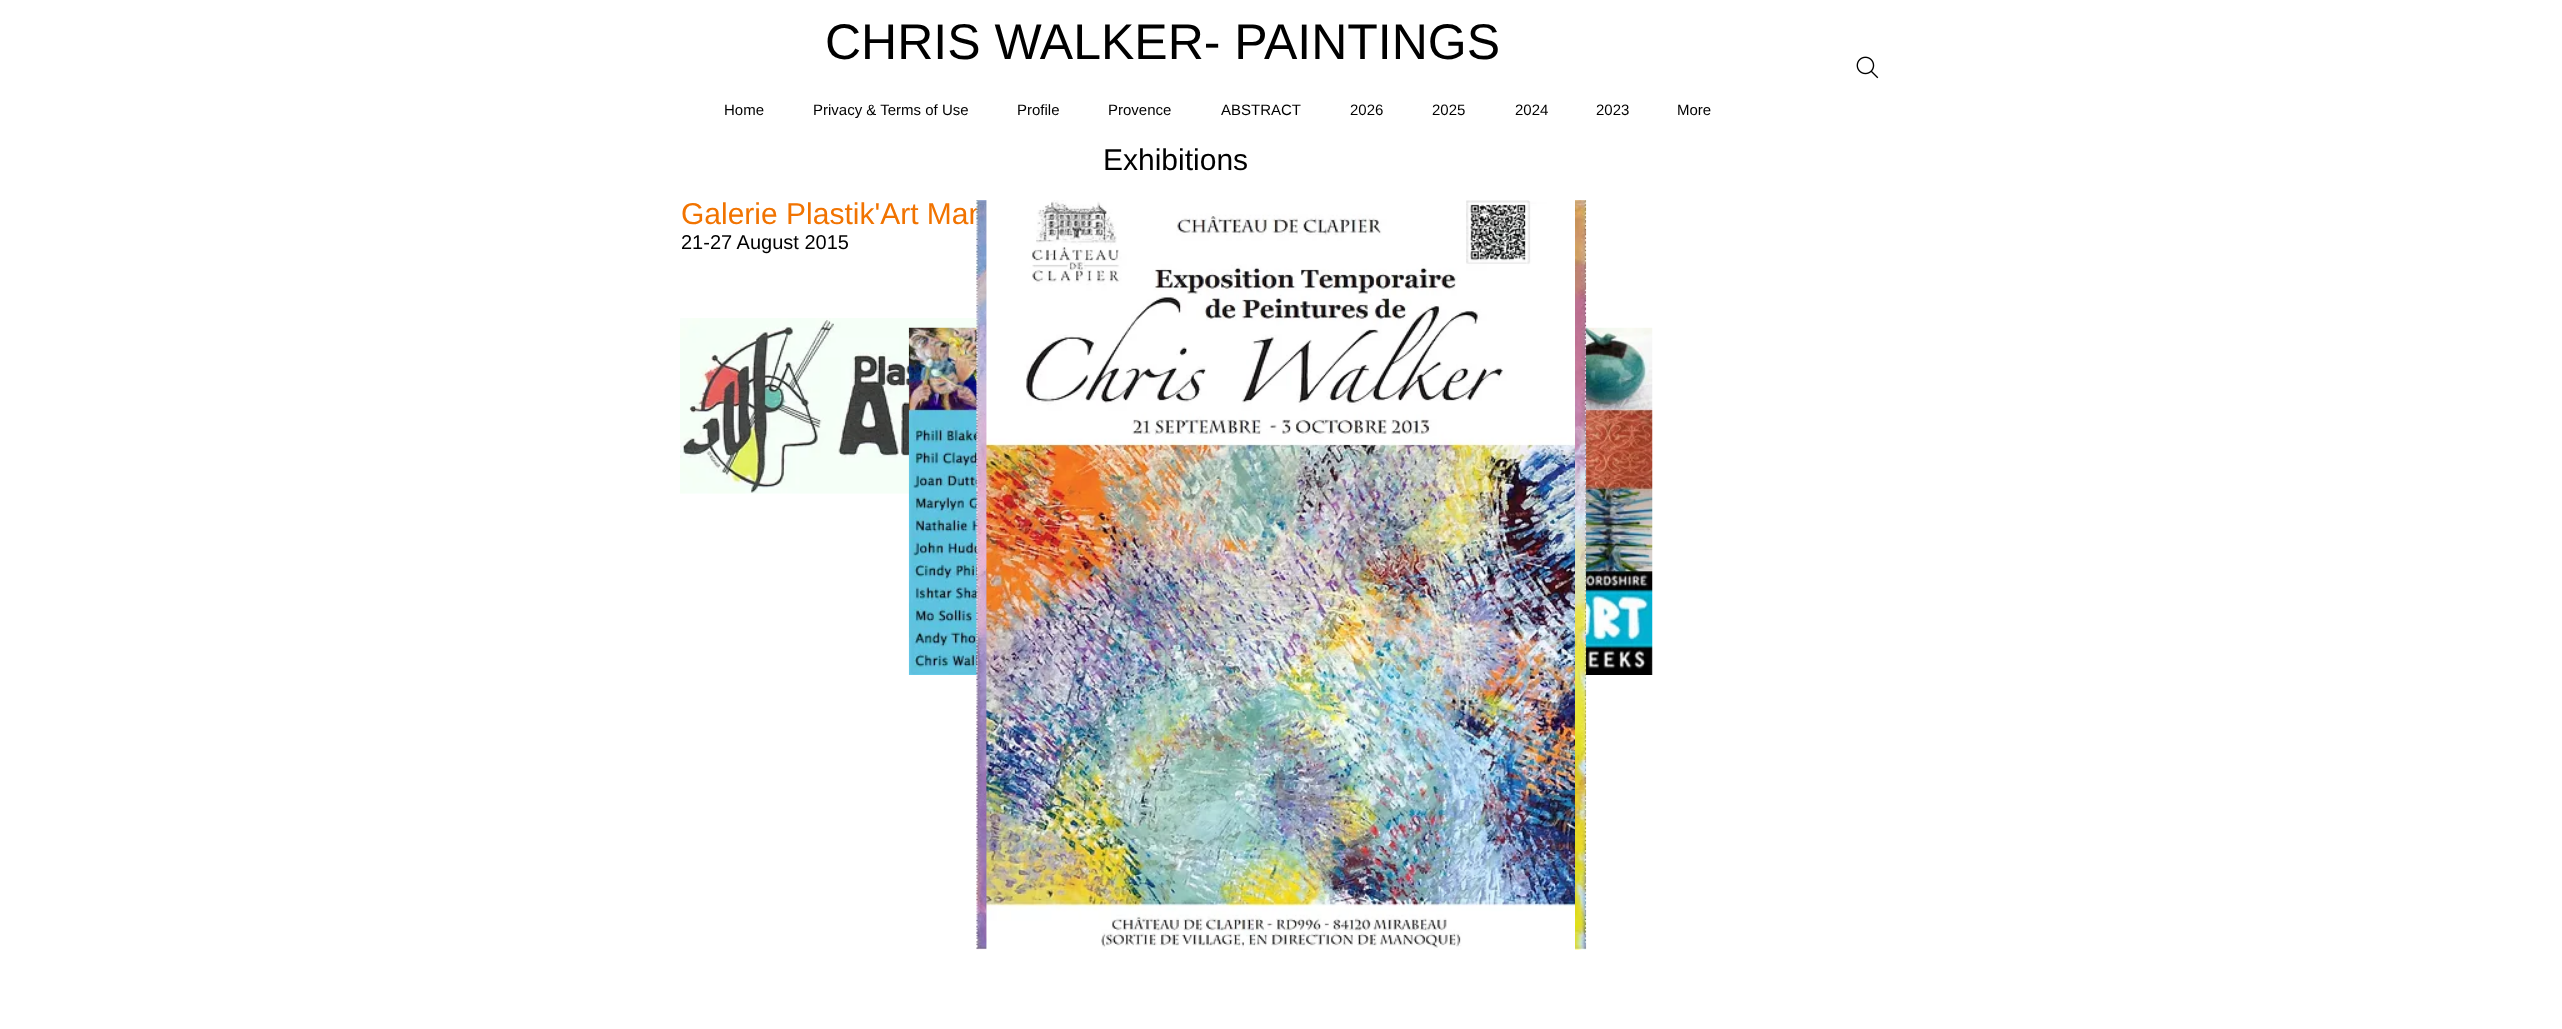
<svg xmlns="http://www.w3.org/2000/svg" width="2562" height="1029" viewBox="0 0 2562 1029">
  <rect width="100%" height="100%" fill="#ffffff"/>
  <text x="825" y="59" font-family="Liberation Sans" font-size="50" fill="#000000">CHRIS WALKER- PAINTINGS</text>
  <image x="1856" y="56" width="23" height="23" href="img1.png"/>
  <text x="724" y="115" font-family="Liberation Sans" font-size="15" fill="#000000">Home</text>
  <text x="813" y="115" font-family="Liberation Sans" font-size="15" fill="#000000">Privacy &amp; Terms of Use</text>
  <text x="1017" y="115" font-family="Liberation Sans" font-size="15" fill="#000000">Profile</text>
  <text x="1108" y="115" font-family="Liberation Sans" font-size="15" fill="#000000">Provence</text>
  <text x="1221" y="115" font-family="Liberation Sans" font-size="15" fill="#000000">ABSTRACT</text>
  <text x="1350" y="115" font-family="Liberation Sans" font-size="15" fill="#000000">2026</text>
  <text x="1432" y="115" font-family="Liberation Sans" font-size="15" fill="#000000">2025</text>
  <text x="1515" y="115" font-family="Liberation Sans" font-size="15" fill="#000000">2024</text>
  <text x="1596" y="115" font-family="Liberation Sans" font-size="15" fill="#000000">2023</text>
  <text x="1677" y="115" font-family="Liberation Sans" font-size="15" fill="#000000">More</text>
  <text x="1103" y="170" font-family="Liberation Sans" font-size="30" fill="#000000">Exhibitions</text>
  <text x="681" y="224" font-family="Liberation Sans" font-size="30" fill="#f17300">Galerie Plastik'Art Man</text>
  <image x="680" y="318" width="297" height="176" href="img4.png"/>
  <image x="908" y="327" width="745" height="348" href="img5.png"/>
  <image x="976" y="200" width="611" height="750" href="img2.png"/>
  <text x="681" y="249" font-family="Liberation Sans" font-size="20" fill="#000000">21-27 August 2015</text>
  <image x="986" y="200" width="589" height="750" href="img3.png"/>
</svg>
